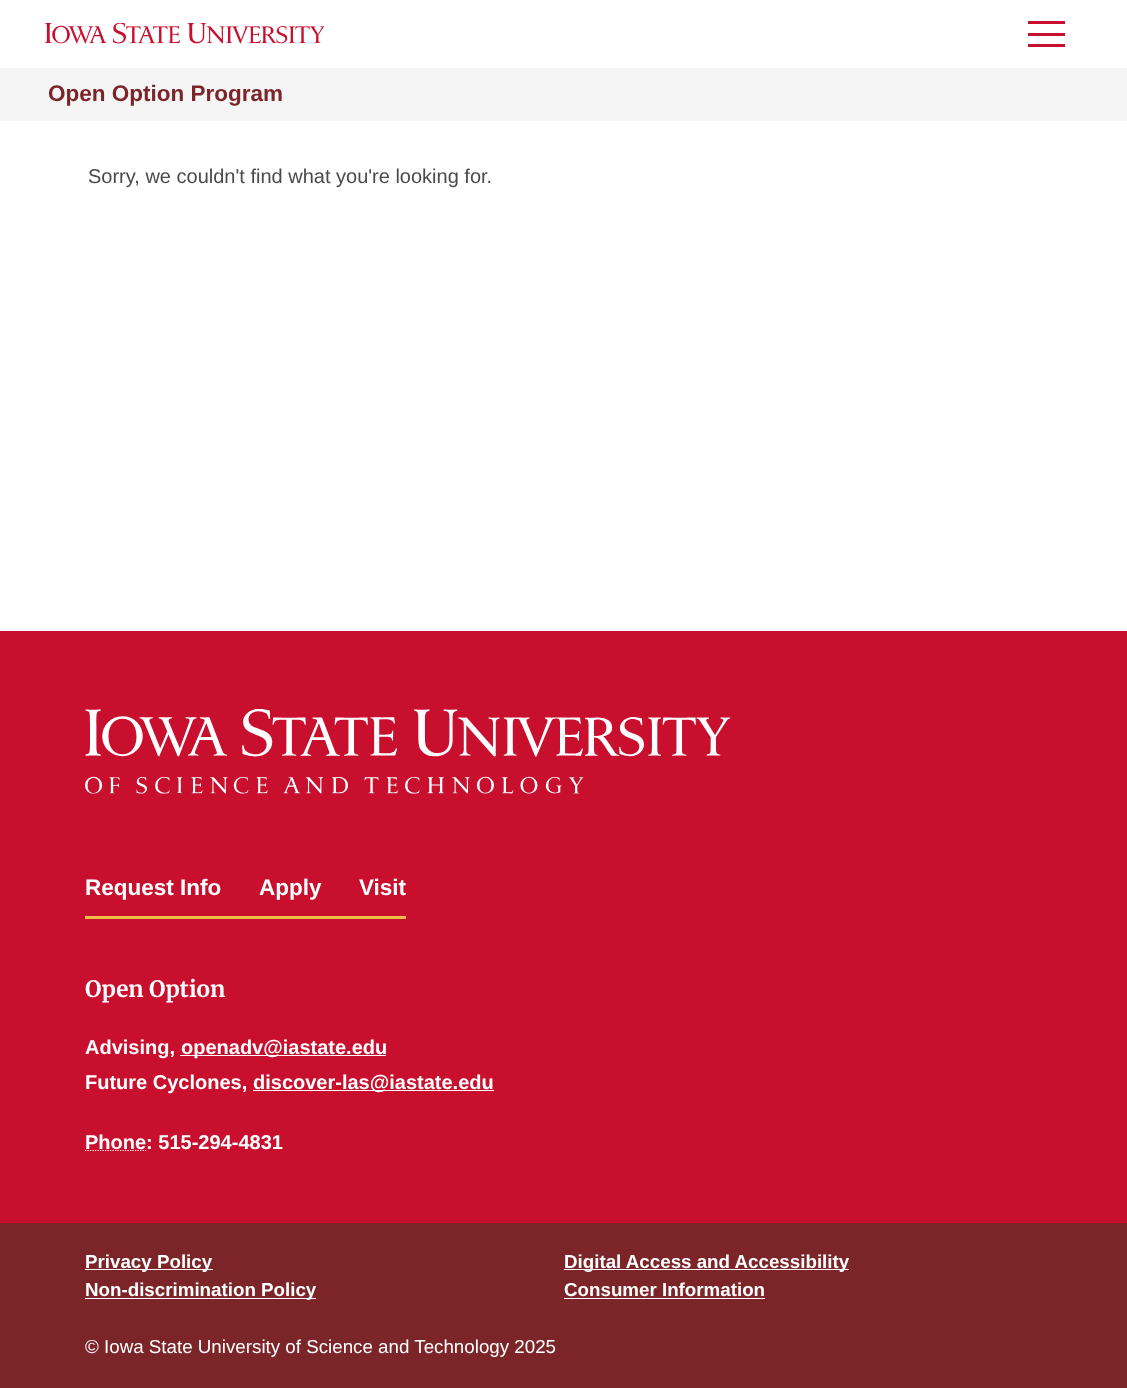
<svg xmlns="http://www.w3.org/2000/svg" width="1127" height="1388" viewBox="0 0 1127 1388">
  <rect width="100%" height="100%" fill="#ffffff"/>
  <rect x="1028" y="21" width="37" height="3" fill="#c8102e"/>
  <rect x="1028" y="33" width="37" height="3" fill="#c8102e"/>
  <rect x="1028" y="44" width="37" height="3" fill="#c8102e"/>
  <image x="45" y="23" width="280" height="21" href="img1.png"/>
  <rect x="0" y="68" width="1127" height="53" fill="#f5f5f5"/>
  <text x="48" y="101" font-family="Liberation Sans" font-size="22.5" font-weight="bold" fill="#7c2529">Open Option Program</text>
  <text x="88" y="183" font-family="Liberation Sans" font-size="20" fill="#4a4a4a">Sorry, we couldn't find what you're looking for.</text>
  <rect x="0" y="631" width="1127" height="592" fill="#c8102e"/>
  <image x="85" y="709" width="645" height="85" href="img2.png"/>
  <rect x="85" y="916" width="321" height="3" fill="#f1be48"/>
  <text x="85" y="895" font-family="Liberation Sans" font-size="22.5" font-weight="bold" fill="#ffffff">Request Info</text>
  <text x="259" y="895" font-family="Liberation Sans" font-size="22.5" font-weight="bold" fill="#ffffff">Apply</text>
  <text x="359" y="895" font-family="Liberation Sans" font-size="22.5" font-weight="bold" fill="#ffffff">Visit</text>
  <text x="85" y="997" font-family="Merriweather" font-size="22.5" font-weight="bold" fill="#ffffff">Open Option</text>
  <text x="85" y="1054" font-family="Liberation Sans" font-size="20" font-weight="bold" fill="#ffffff">Advising,</text>
  <rect x="180" y="1055" width="206" height="1" fill="#ffffff"/>
  <text x="181" y="1054" font-family="Liberation Sans" font-size="20" font-weight="bold" fill="#ffffff">openadv@iastate.edu</text>
  <text x="85" y="1089" font-family="Liberation Sans" font-size="20" font-weight="bold" fill="#ffffff">Future Cyclones,</text>
  <rect x="253" y="1090" width="241" height="1" fill="#ffffff"/>
  <text x="253" y="1089" font-family="Liberation Sans" font-size="20" font-weight="bold" fill="#ffffff">discover-las@iastate.edu</text>
  <path d="M85 1150.5H146" fill="none" stroke="#ffffff" stroke-width="1.2" stroke-dasharray="1.25 1.25"/>
  <text x="85" y="1149" font-family="Liberation Sans" font-size="20" font-weight="bold" fill="#ffffff">Phone: 515-294-4831</text>
  <rect x="0" y="1223" width="1127" height="165" fill="#7c2529"/>
  <rect x="85" y="1269" width="128" height="1" fill="#ffffff"/>
  <text x="85" y="1268" font-family="Liberation Sans" font-size="18.75" font-weight="bold" fill="#ffffff">Privacy Policy</text>
  <rect x="564" y="1269" width="285" height="1" fill="#ffffff"/>
  <text x="564" y="1268" font-family="Liberation Sans" font-size="18.75" font-weight="bold" fill="#ffffff">Digital Access and Accessibility</text>
  <rect x="85" y="1298" width="231" height="1" fill="#ffffff"/>
  <text x="85" y="1296" font-family="Liberation Sans" font-size="18.75" font-weight="bold" fill="#ffffff">Non-discrimination Policy</text>
  <text x="564" y="1296" font-family="Liberation Sans" font-size="18.75" font-weight="bold" fill="#ffffff">Consumer Information</text>
  <rect x="564" y="1298" width="201" height="1" fill="#ffffff"/>
  <text x="85" y="1353" font-family="Liberation Sans" font-size="18.75" fill="#ffffff">© Iowa State University of Science and Technology 2025</text>
</svg>
